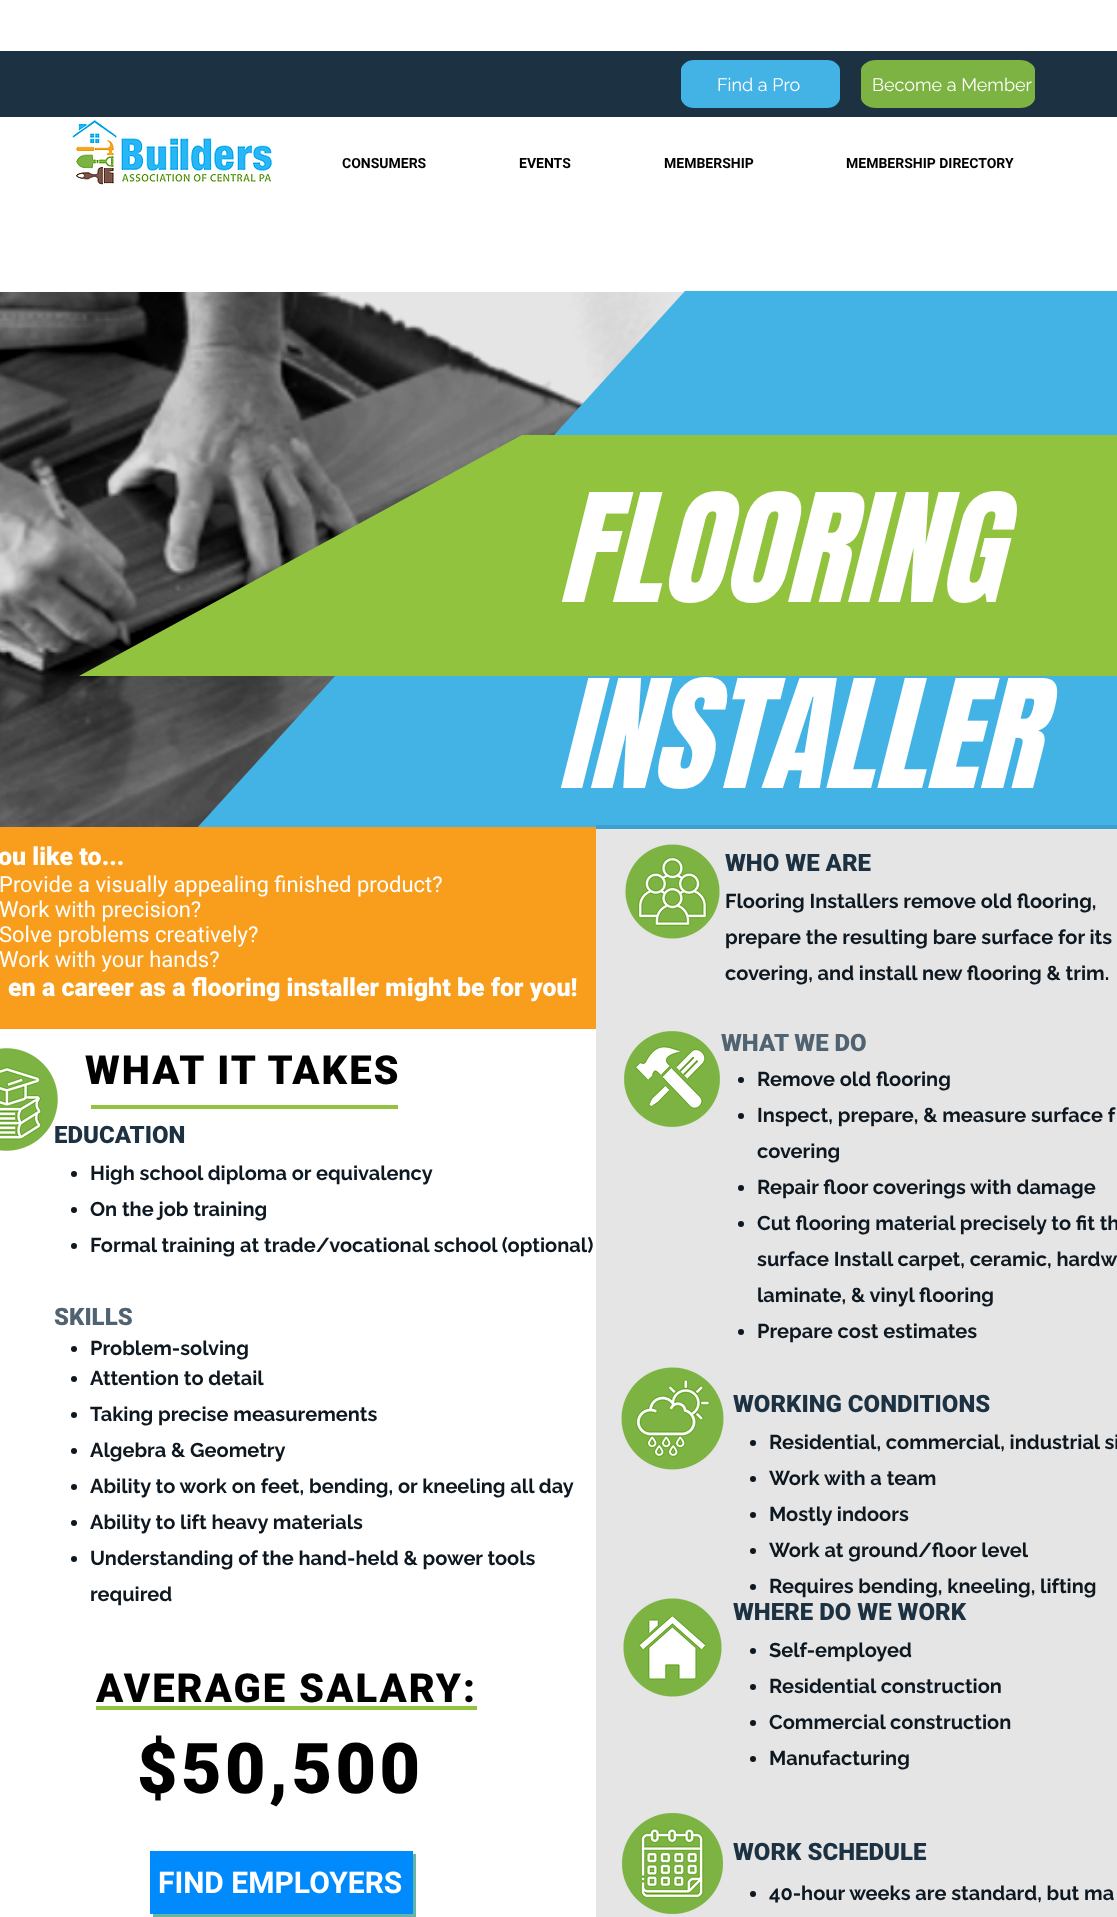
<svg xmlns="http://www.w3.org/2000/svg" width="1117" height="1917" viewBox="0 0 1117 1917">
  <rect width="100%" height="100%" fill="#ffffff"/>
  <rect x="0" y="51" width="1117" height="66" fill="#1c3142"/>
  <path d="M827 108H694C687 108 681 103 681 98V70C681 65 687 60 694 60H827C834 60 840 65 840 70V98C840 103 834 108 827 108Z" fill="#43b3e6"/>
  <path d="M1020 108H876C868 108 861 103 861 98V70C861 65 868 60 876 60H1020C1028 60 1035 65 1035 70V98C1035 103 1028 108 1020 108Z" fill="#7cb342"/>
  <text x="717" y="91" font-family="Raleway" font-size="18" fill="#ffffff">Find a Pro</text>
  <text x="872" y="91" font-family="Raleway" font-size="18" fill="#ffffff">Become a Member</text>
  <image x="72" y="119" width="202" height="66" href="img1.png"/>
  <text x="342" y="168" font-family="Roboto" font-size="14" font-weight="bold" fill="#000000">CONSUMERS</text>
  <text x="519" y="168" font-family="Roboto" font-size="14" font-weight="bold" fill="#000000">EVENTS</text>
  <text x="664" y="168" font-family="Roboto" font-size="14" font-weight="bold" fill="#000000">MEMBERSHIP</text>
  <text x="846" y="168" font-family="Roboto" font-size="14" font-weight="bold" fill="#000000">MEMBERSHIP DIRECTORY</text>
  <image x="0" y="292" width="684" height="535" href="img2.png"/>
  <path d="M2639 829H196L685 291H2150Z" fill="#43b3e6"/>
  <path d="M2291 676H79L522 435H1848Z" fill="#91c33f"/>
  <text x="557" y="602" font-family="Anton" font-size="128" font-style="italic" fill="#ffffff">FLOORING</text>
  <text x="557" y="788" font-family="Anton" font-size="128" font-style="italic" fill="#ffffff">INSTALLER</text>
  <rect x="0" y="827" width="596" height="202" fill="#f99d1c"/>
  <text x="-2" y="865" font-family="Roboto" font-size="25" font-weight="900" fill="#ffffff">ou like to...</text>
  <text x="-1" y="892" font-family="Roboto" font-size="22" fill="#ffffff">Provide a visually appealing finished product?</text>
  <text x="-1" y="917" font-family="Roboto" font-size="22" fill="#ffffff">Work with precision?</text>
  <text x="-1" y="942" font-family="Roboto" font-size="22" fill="#ffffff">Solve problems creatively?</text>
  <text x="-1" y="967" font-family="Roboto" font-size="22" fill="#ffffff">Work with your hands?</text>
  <text x="8" y="996" font-family="Roboto" font-size="25" font-weight="900" fill="#ffffff">en a career as a flooring installer might be for you!</text>
  <rect x="596" y="825" width="521" height="1092" fill="#000000" fill-opacity="0.1"/>
  <image x="625" y="844" width="95" height="95" href="img3.png"/>
  <text x="725" y="871" font-family="Roboto" font-size="24" font-weight="900" fill="#1c3142">WHO WE ARE</text>
  <text x="725" y="908" font-family="Raleway" font-size="20" font-weight="bold" fill="#0e1821">Flooring Installers remove old flooring,</text>
  <text x="725" y="944" font-family="Raleway" font-size="20" font-weight="bold" fill="#0e1821">prepare the resulting bare surface for its</text>
  <text x="725" y="980" font-family="Raleway" font-size="20" font-weight="bold" fill="#0e1821">covering, and install new flooring &amp; trim.</text>
  <image x="624" y="1031" width="96" height="96" href="img4.png"/>
  <image x="621" y="1367" width="103" height="103" href="img5.png"/>
  <text x="733" y="1412" font-family="Roboto" font-size="24" font-weight="900" fill="#1c3142">WORKING CONDITIONS</text>
  <circle cx="753" cy="1443" r="3" fill="#0e1821"/>
  <text x="769" y="1449" font-family="Raleway" font-size="20" font-weight="bold" fill="#0e1821">Residential, commercial, industrial si</text>
  <circle cx="753" cy="1479" r="3" fill="#0e1821"/>
  <text x="769" y="1485" font-family="Raleway" font-size="20" font-weight="bold" fill="#0e1821">Work with a team</text>
  <circle cx="753" cy="1515" r="3" fill="#0e1821"/>
  <text x="769" y="1521" font-family="Raleway" font-size="20" font-weight="bold" fill="#0e1821">Mostly indoors</text>
  <circle cx="753" cy="1551" r="3" fill="#0e1821"/>
  <text x="769" y="1557" font-family="Raleway" font-size="20" font-weight="bold" fill="#0e1821">Work at ground/floor level</text>
  <circle cx="753" cy="1587" r="3" fill="#0e1821"/>
  <text x="769" y="1593" font-family="Raleway" font-size="20" font-weight="bold" fill="#0e1821">Requires bending, kneeling, lifting</text>
  <image x="623" y="1598" width="99" height="99" href="img6.png"/>
  <image x="621" y="1812" width="103" height="103" href="img7.png"/>
  <text x="733" y="1860" font-family="Roboto" font-size="24" font-weight="900" fill="#1c3142">WORK SCHEDULE</text>
  <circle cx="753" cy="1894" r="3" fill="#0e1821"/>
  <text x="769" y="1900" font-family="Raleway" font-size="20" font-weight="bold" fill="#0e1821">40-hour weeks are standard, but ma</text>
  <image x="0" y="1048" width="58" height="103" href="img8.png"/>
  <text x="85" y="1084" font-family="Roboto" font-size="40" font-weight="900" letter-spacing="2" fill="#000000">WHAT IT TAKES</text>
  <rect x="91" y="1105" width="307" height="4" fill="#91c33f"/>
  <text x="54" y="1143" font-family="Roboto" font-size="24" font-weight="900" fill="#1c3142">EDUCATION</text>
  <circle cx="74" cy="1174" r="3" fill="#0e1821"/>
  <text x="90" y="1180" font-family="Raleway" font-size="20" font-weight="bold" fill="#0e1821">High school diploma or equivalency</text>
  <circle cx="74" cy="1210" r="3" fill="#0e1821"/>
  <text x="90" y="1216" font-family="Raleway" font-size="20" font-weight="bold" fill="#0e1821">On the job training</text>
  <circle cx="74" cy="1246" r="3" fill="#0e1821"/>
  <text x="90" y="1252" font-family="Raleway" font-size="20" font-weight="bold" fill="#0e1821">Formal training at trade/vocational school (optional)</text>
  <text x="54" y="1325" font-family="Roboto" font-size="24" font-weight="900" fill="#516371">SKILLS</text>
  <circle cx="74" cy="1349" r="3" fill="#0e1821"/>
  <text x="90" y="1355" font-family="Raleway" font-size="20" font-weight="bold" fill="#0e1821">Problem-solving</text>
  <circle cx="74" cy="1379" r="3" fill="#0e1821"/>
  <text x="90" y="1385" font-family="Raleway" font-size="20" font-weight="bold" fill="#0e1821">Attention to detail</text>
  <circle cx="74" cy="1415" r="3" fill="#0e1821"/>
  <text x="90" y="1421" font-family="Raleway" font-size="20" font-weight="bold" fill="#0e1821">Taking precise measurements</text>
  <circle cx="74" cy="1451" r="3" fill="#0e1821"/>
  <text x="90" y="1457" font-family="Raleway" font-size="20" font-weight="bold" fill="#0e1821">Algebra &amp; Geometry</text>
  <circle cx="74" cy="1487" r="3" fill="#0e1821"/>
  <text x="90" y="1493" font-family="Raleway" font-size="20" font-weight="bold" fill="#0e1821">Ability to work on feet, bending, or kneeling all day</text>
  <circle cx="74" cy="1523" r="3" fill="#0e1821"/>
  <text x="90" y="1529" font-family="Raleway" font-size="20" font-weight="bold" fill="#0e1821">Ability to lift heavy materials</text>
  <circle cx="74" cy="1559" r="3" fill="#0e1821"/>
  <text x="90" y="1565" font-family="Raleway" font-size="20" font-weight="bold" fill="#0e1821">Understanding of the hand-held &amp; power tools</text>
  <text x="90" y="1601" font-family="Raleway" font-size="20" font-weight="bold" fill="#0e1821">required</text>
  <text x="721" y="1051" font-family="Roboto" font-size="24" font-weight="900" fill="#516371">WHAT WE DO</text>
  <circle cx="741" cy="1080" r="3" fill="#0e1821"/>
  <text x="757" y="1086" font-family="Raleway" font-size="20" font-weight="bold" fill="#0e1821">Remove old flooring</text>
  <circle cx="741" cy="1116" r="3" fill="#0e1821"/>
  <text x="757" y="1122" font-family="Raleway" font-size="20" font-weight="bold" fill="#0e1821">Inspect, prepare, &amp; measure surface f</text>
  <text x="757" y="1158" font-family="Raleway" font-size="20" font-weight="bold" fill="#0e1821">covering</text>
  <circle cx="741" cy="1188" r="3" fill="#0e1821"/>
  <text x="757" y="1194" font-family="Raleway" font-size="20" font-weight="bold" fill="#0e1821">Repair floor coverings with damage</text>
  <circle cx="741" cy="1224" r="3" fill="#0e1821"/>
  <text x="757" y="1230" font-family="Raleway" font-size="20" font-weight="bold" fill="#0e1821">Cut flooring material precisely to fit th</text>
  <text x="757" y="1266" font-family="Raleway" font-size="20" font-weight="bold" fill="#0e1821">surface Install carpet, ceramic, hardw</text>
  <text x="757" y="1302" font-family="Raleway" font-size="20" font-weight="bold" fill="#0e1821">laminate, &amp; vinyl flooring</text>
  <circle cx="741" cy="1332" r="3" fill="#0e1821"/>
  <text x="757" y="1338" font-family="Raleway" font-size="20" font-weight="bold" fill="#0e1821">Prepare cost estimates</text>
  <text x="96" y="1702" font-family="Roboto" font-size="40" font-weight="900" letter-spacing="2" fill="#000000">AVERAGE SALARY:</text>
  <text x="733" y="1620" font-family="Roboto" font-size="24" font-weight="900" fill="#1c3142">WHERE DO WE WORK</text>
  <circle cx="753" cy="1651" r="3" fill="#0e1821"/>
  <text x="769" y="1657" font-family="Raleway" font-size="20" font-weight="bold" fill="#0e1821">Self-employed</text>
  <circle cx="753" cy="1687" r="3" fill="#0e1821"/>
  <text x="769" y="1693" font-family="Raleway" font-size="20" font-weight="bold" fill="#0e1821">Residential construction</text>
  <circle cx="753" cy="1723" r="3" fill="#0e1821"/>
  <text x="769" y="1729" font-family="Raleway" font-size="20" font-weight="bold" fill="#0e1821">Commercial construction</text>
  <circle cx="753" cy="1759" r="3" fill="#0e1821"/>
  <text x="769" y="1765" font-family="Raleway" font-size="20" font-weight="bold" fill="#0e1821">Manufacturing</text>
  <rect x="96" y="1706" width="381" height="4" fill="#91c33f"/>
  <text x="137" y="1793" font-family="Roboto" font-size="70" font-weight="900" letter-spacing="3.5" fill="#000000">$50,500</text>
  <path d="M153 1914V1917H416V1854H413V1914Z" fill="#65b5a6"/>
  <rect x="150" y="1851" width="263" height="63" fill="#008afc"/>
  <text x="158" y="1893" font-family="Roboto" font-size="30" font-weight="bold" fill="#ffffff">FIND EMPLOYERS</text>
</svg>
